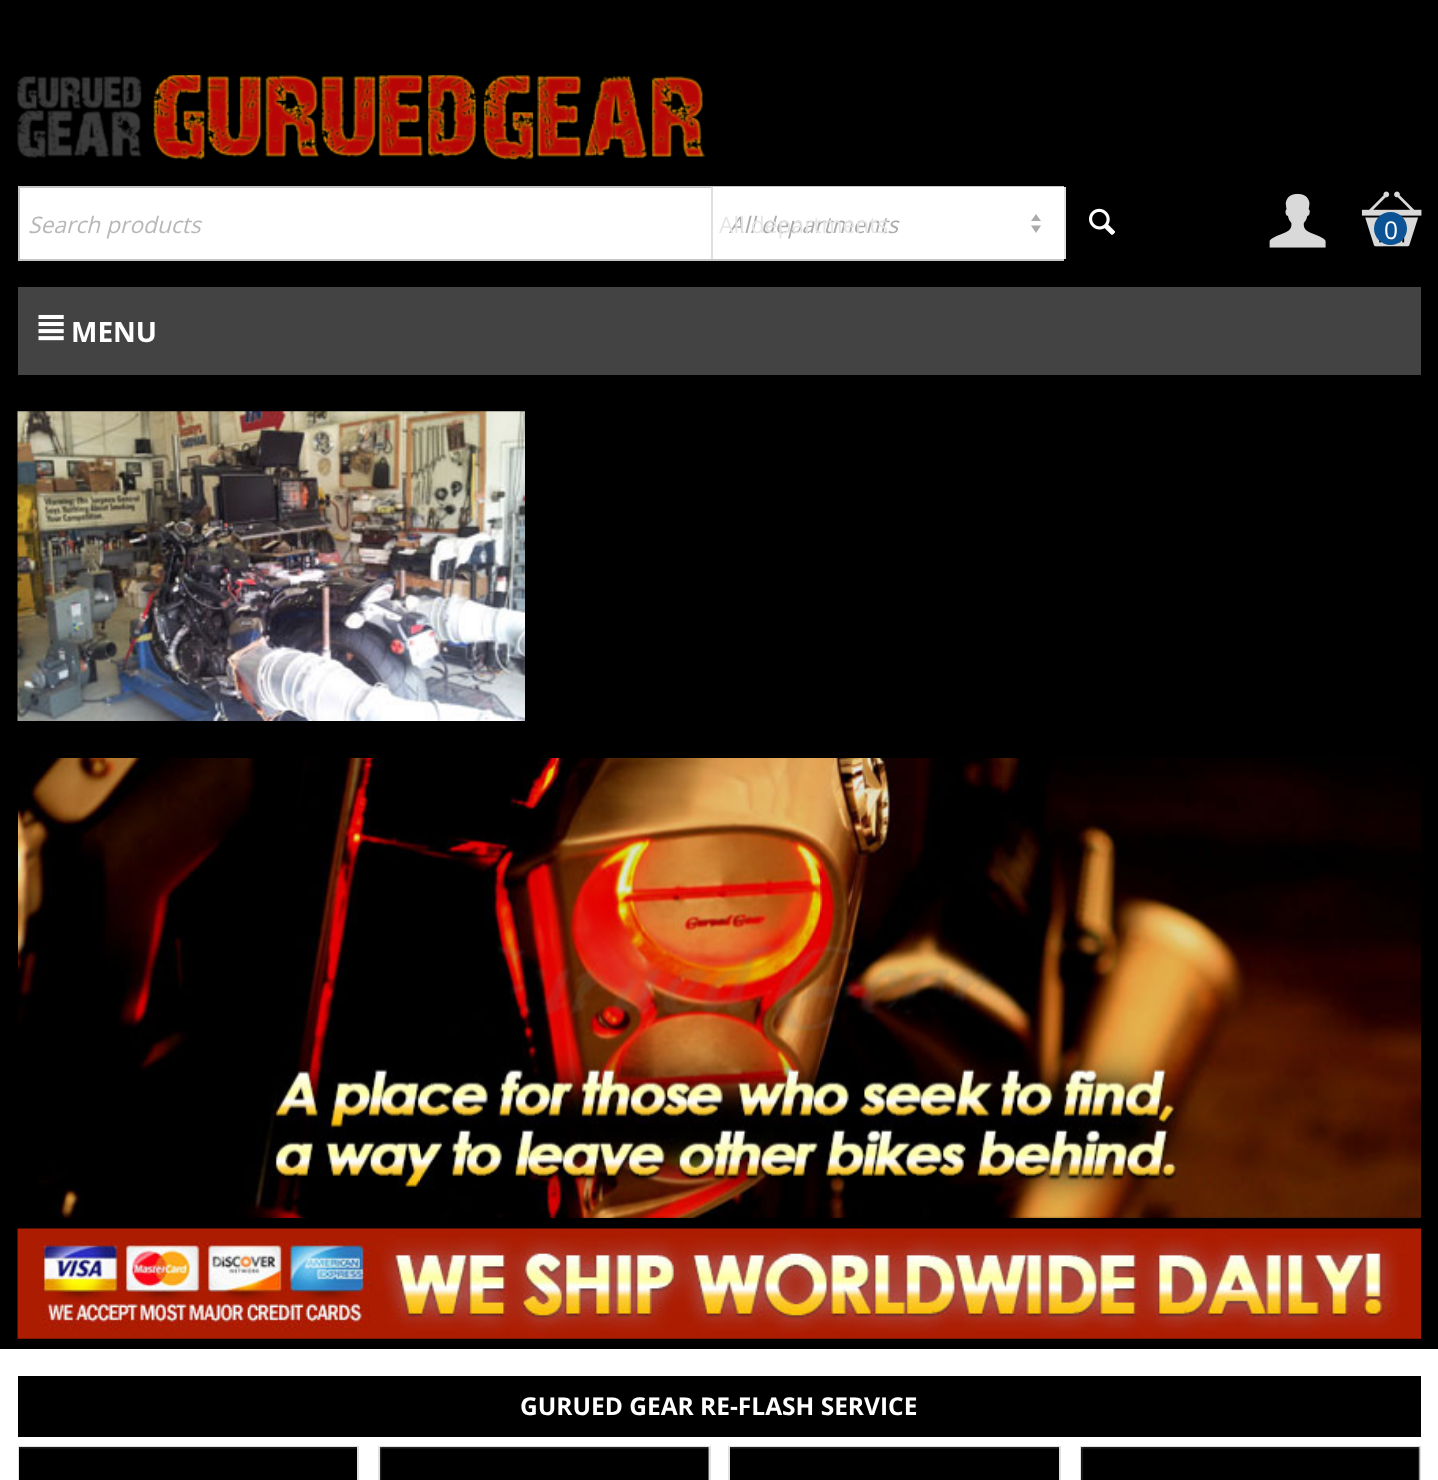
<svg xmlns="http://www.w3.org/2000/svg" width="1438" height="1480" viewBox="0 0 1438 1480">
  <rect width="100%" height="100%" fill="#000000"/>
  <image x="17" y="75" width="689" height="85" href="img1.png"/>
  <rect x="20" y="188" width="691" height="71" fill="#ffffff"/>
  <rect x="19" y="187" width="1121" height="73" fill="none" stroke="#c5c5c5" stroke-width="2"/>
  <text x="28" y="233" font-family="Open Sans" font-size="22.75" font-style="italic" fill="#b8b8b8">Search products</text>
  <rect x="713" y="187" width="351" height="72" fill="#ffffff"/>
  <text x="729" y="233" font-family="Open Sans" font-size="22.75" font-style="italic" fill="#ababab">All departments</text>
  <text x="719" y="233" font-family="Open Sans" font-size="22.75" fill="#e6e6e6">All departments</text>
  <rect x="1064" y="186" width="77" height="75" fill="#000000"/>
  <image x="1089" y="208" width="26" height="27" href="img2.png"/>
  <rect x="1064" y="187" width="2" height="72" fill="#e0e0e0"/>
  <rect x="711" y="187" width="2" height="72" fill="#e0e0e0"/>
  <path d="M1036 214L1031 221H1041ZM1036 233L1041 225.5H1031Z" fill="#ababab"/>
  <image x="1269" y="193" width="57" height="55" href="img3.png"/>
  <image x="1361" y="191" width="61" height="56" href="img4.png"/>
  <circle cx="1390.5" cy="228.5" r="16.5" fill="#0b5394"/>
  <text x="1384" y="239" font-family="Open Sans" font-size="24.5" fill="#ffffff">0</text>
  <rect x="18" y="287" width="1403" height="88" fill="#434343"/>
  <image x="38" y="314" width="26" height="27" href="img5.png"/>
  <text x="71" y="342" font-family="Open Sans" font-size="28" font-weight="bold" fill="#ffffff">MENU</text>
  <image x="17" y="411" width="508" height="310" href="img6.png"/>
  <image x="18" y="758" width="1403" height="460" href="img7.png"/>
  <image x="17" y="1228" width="1404" height="111" href="img8.png"/>
  <rect x="0" y="1349" width="1438" height="131" fill="#ffffff"/>
  <rect x="18" y="1376" width="1403" height="61" fill="#000000"/>
  <text x="520" y="1415" font-family="Open Sans" font-size="24.5" font-weight="bold" fill="#ffffff">GURUED GEAR RE-FLASH SERVICE</text>
  <rect x="19" y="1447" width="339" height="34" fill="none" stroke="#e3dfdf" stroke-width="2"/>
  <image x="19" y="1447" width="338" height="33" href="img9.png"/>
  <rect x="379" y="1447" width="331" height="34" fill="none" stroke="#e3dfdf" stroke-width="2"/>
  <rect x="380" y="1447" width="329" height="1" fill="#ffffff"/>
  <image x="380" y="1447" width="329" height="33" href="img10.png"/>
  <rect x="729" y="1447" width="331" height="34" fill="none" stroke="#e3dfdf" stroke-width="2"/>
  <image x="730" y="1447" width="329" height="33" href="img11.png"/>
  <rect x="1081" y="1447" width="339" height="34" fill="none" stroke="#e3dfdf" stroke-width="2"/>
  <image x="1081" y="1447" width="339" height="33" href="img12.png"/>
</svg>
